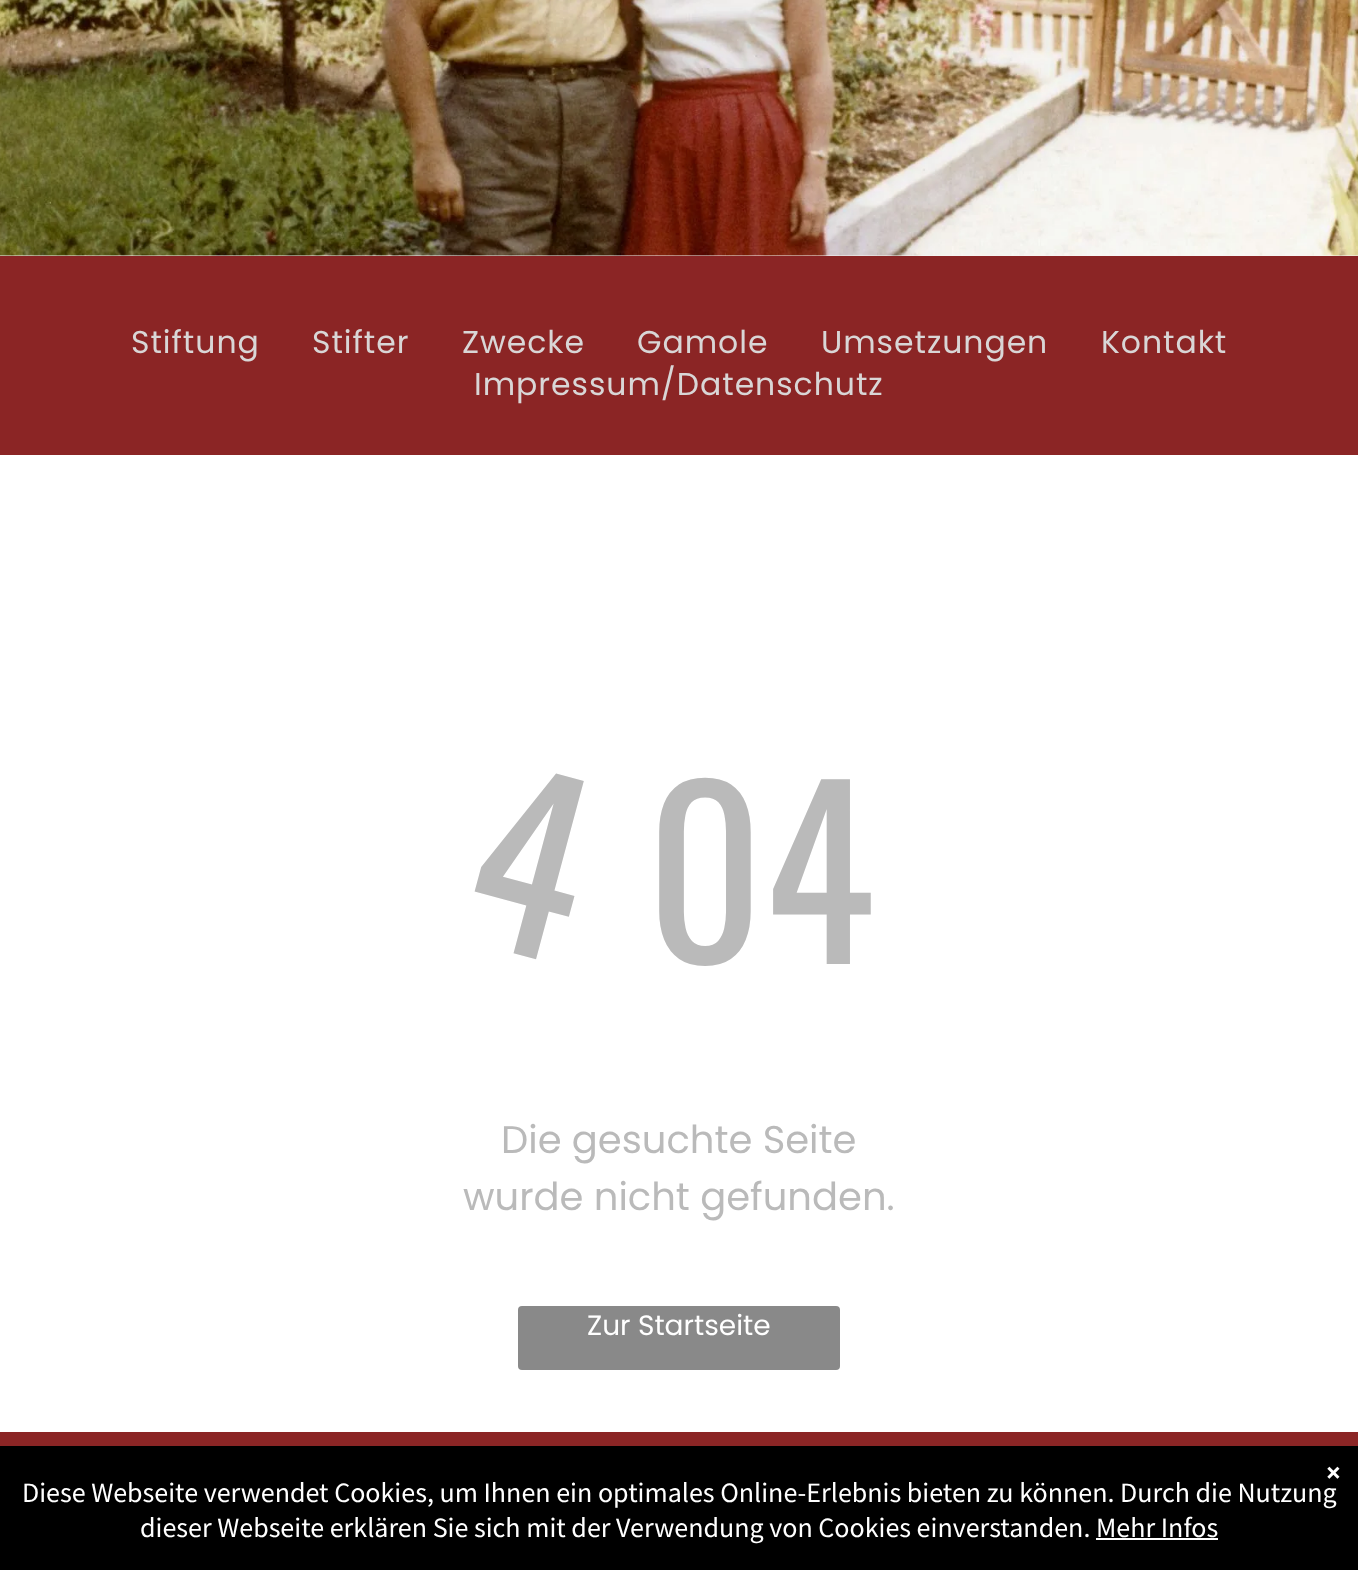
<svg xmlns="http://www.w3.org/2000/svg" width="1358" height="1570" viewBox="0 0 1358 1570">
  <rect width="100%" height="100%" fill="#f9f6f6"/>
  <image x="0" y="0" width="1358" height="256" href="img1.png"/>
  <rect x="0" y="256" width="1358" height="199" fill="#8b2525"/>
  <text x="131" y="353" font-family="Poppins" font-size="31.5" letter-spacing="0.95" fill="#d9d6d6">Stiftung</text>
  <text x="312" y="353" font-family="Poppins" font-size="31.5" letter-spacing="0.95" fill="#d9d6d6">Stifter</text>
  <text x="462" y="353" font-family="Poppins" font-size="31.5" letter-spacing="0.95" fill="#d9d6d6">Zwecke</text>
  <text x="637" y="353" font-family="Poppins" font-size="31.5" letter-spacing="0.95" fill="#d9d6d6">Gamole</text>
  <text x="821" y="353" font-family="Poppins" font-size="31.5" letter-spacing="0.95" fill="#d9d6d6">Umsetzungen</text>
  <text x="1101" y="353" font-family="Poppins" font-size="31.5" letter-spacing="0.95" fill="#d9d6d6">Kontakt</text>
  <text x="474" y="395" font-family="Poppins" font-size="31.5" letter-spacing="0.95" fill="#d9d6d6">Impressum/Datenschutz</text>
  <rect x="0" y="455" width="1358" height="977" fill="#ffffff"/>
  <text x="453" y="937" transform="rotate(15 453 937)" font-family="Oswald" font-size="228" fill="#bababa">4</text>
  <text x="646" y="964" font-family="Oswald" font-size="228" fill="#bababa">04</text>
  <text x="501" y="1153" font-family="Poppins" font-size="38.5" fill="#bababa">Die gesuchte Seite</text>
  <text x="463" y="1210" font-family="Poppins" font-size="38.5" fill="#bababa">wurde nicht gefunden.</text>
  <rect x="518" y="1306" width="322" height="64" rx="4" fill="#898989"/>
  <text x="587" y="1335" font-family="Poppins" font-size="28" fill="#ffffff">Zur Startseite</text>
  <rect x="0" y="1432" width="1358" height="14" fill="#8b2525"/>
  <rect x="0" y="1446" width="1358" height="124" fill="#000000"/>
  <text x="1326" y="1482" font-family="Source Sans Pro" font-size="28" font-weight="bold" fill="#ffffff">×</text>
  <text x="22" y="1502" font-family="Source Sans Pro" font-size="28" fill="#ffffff">Diese Webseite verwendet Cookies, um Ihnen ein optimales Online-Erlebnis bieten zu können. Durch die Nutzung</text>
  <text x="140" y="1537" font-family="Source Sans Pro" font-size="28" fill="#ffffff">dieser Webseite erklären Sie sich mit der Verwendung von Cookies einverstanden. Mehr Infos</text>
  <rect x="1096" y="1538" width="122" height="2" fill="#ffffff"/>
</svg>
